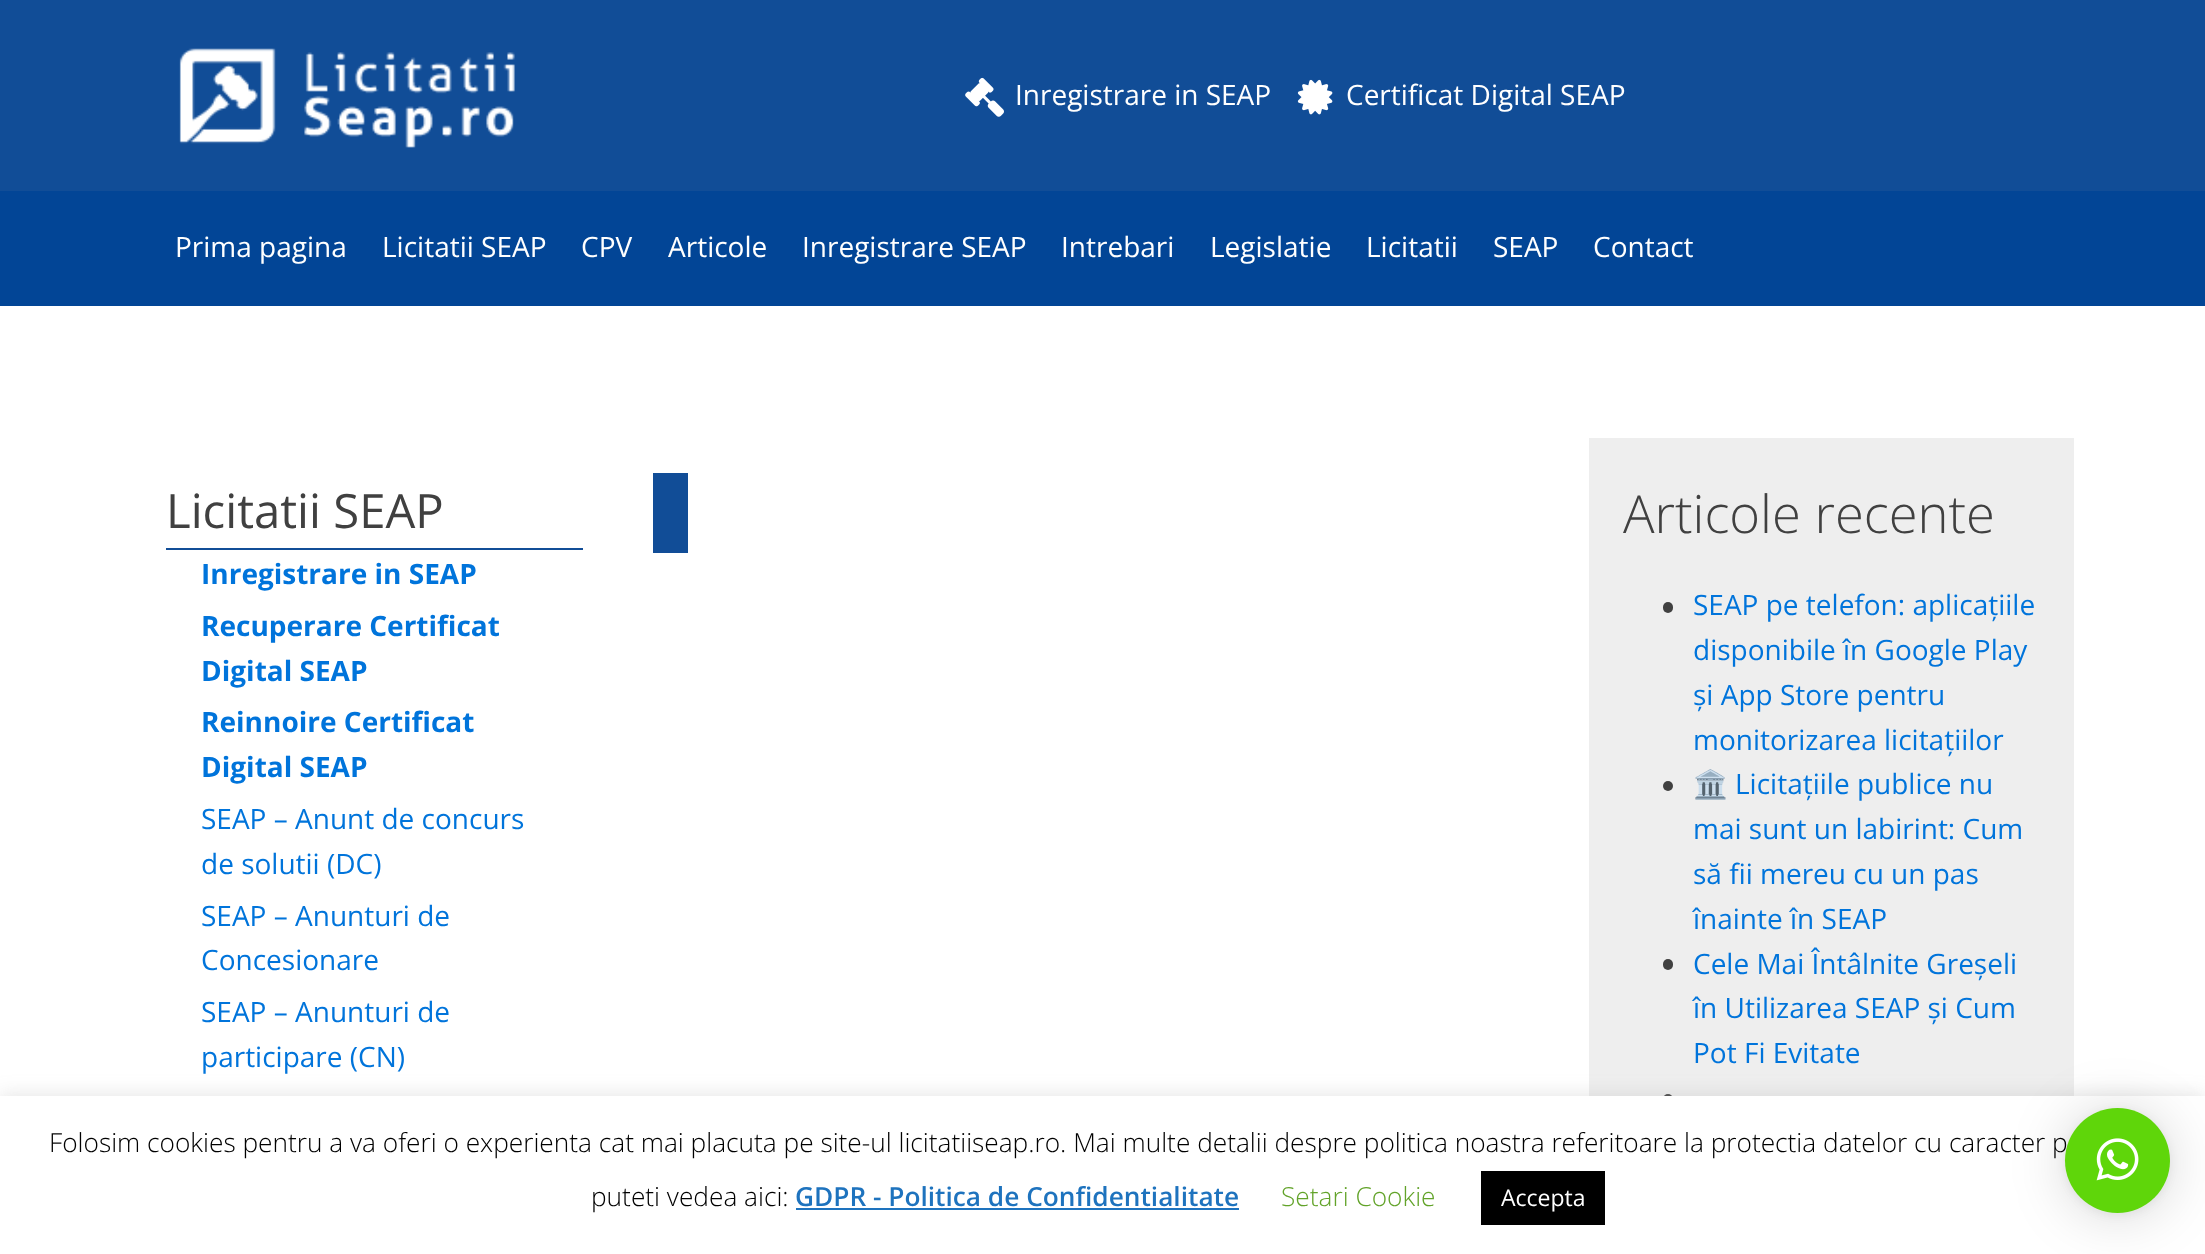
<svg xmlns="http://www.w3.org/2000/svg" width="2205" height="1254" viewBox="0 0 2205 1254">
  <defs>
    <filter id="blur1" x="-50%" y="-200%" width="200%" height="500%"><feGaussianBlur stdDeviation="9"/></filter>
    <filter id="blur2" x="-50%" y="-200%" width="200%" height="500%"><feGaussianBlur stdDeviation="28"/></filter>
    <filter id="blur3" x="-50%" y="-200%" width="200%" height="500%"><feGaussianBlur stdDeviation="5"/></filter>
  </defs>
  <rect width="100%" height="100%" fill="#ffffff"/>
  <rect x="0" y="0" width="2205" height="191" fill="#114d97"/>
  <image x="179" y="48" width="336" height="100" href="img1.png"/>
  <image x="965" y="77" width="39" height="40" href="img2.png"/>
  <text x="1015" y="105" font-family="Open Sans" font-size="28" fill="#ffffff">Inregistrare in SEAP</text>
  <image x="1297" y="79" width="36" height="36" href="img3.png"/>
  <text x="1346" y="105" font-family="Open Sans" font-size="28" fill="#ffffff">Certificat Digital SEAP</text>
  <rect x="0" y="191" width="2205" height="115" fill="#024596"/>
  <text x="175" y="257" font-family="Open Sans" font-size="28" fill="#ffffff">Prima pagina</text>
  <text x="382" y="257" font-family="Open Sans" font-size="28" fill="#ffffff">Licitatii SEAP</text>
  <text x="581" y="257" font-family="Open Sans" font-size="28" fill="#ffffff">CPV</text>
  <text x="668" y="257" font-family="Open Sans" font-size="28" fill="#ffffff">Articole</text>
  <text x="802" y="257" font-family="Open Sans" font-size="28" fill="#ffffff">Inregistrare SEAP</text>
  <text x="1061" y="257" font-family="Open Sans" font-size="28" fill="#ffffff">Intrebari</text>
  <text x="1210" y="257" font-family="Open Sans" font-size="28" fill="#ffffff">Legislatie</text>
  <text x="1366" y="257" font-family="Open Sans" font-size="28" fill="#ffffff">Licitatii</text>
  <text x="1493" y="257" font-family="Open Sans" font-size="28" fill="#ffffff">SEAP</text>
  <text x="1593" y="257" font-family="Open Sans" font-size="28" fill="#ffffff">Contact</text>
  <rect x="166" y="548" width="417" height="2" fill="#114d97"/>
  <text x="166" y="528" font-family="Open Sans" font-size="47.25" fill="#404040">Licitatii SEAP</text>
  <text x="201" y="584" font-family="Open Sans" font-size="28" font-weight="bold" fill="#0074db">Inregistrare in SEAP</text>
  <text x="201" y="636" font-family="Open Sans" font-size="28" font-weight="bold" fill="#0074db">Recuperare Certificat</text>
  <text x="201" y="681" font-family="Open Sans" font-size="28" font-weight="bold" fill="#0074db">Digital SEAP</text>
  <text x="201" y="732" font-family="Open Sans" font-size="28" font-weight="bold" fill="#0074db">Reinnoire Certificat</text>
  <text x="201" y="777" font-family="Open Sans" font-size="28" font-weight="bold" fill="#0074db">Digital SEAP</text>
  <text x="201" y="829" font-family="Open Sans" font-size="28" fill="#0074db">SEAP – Anunt de concurs</text>
  <text x="201" y="874" font-family="Open Sans" font-size="28" fill="#0074db">de solutii (DC)</text>
  <text x="201" y="926" font-family="Open Sans" font-size="28" fill="#0074db">SEAP – Anunturi de</text>
  <text x="201" y="970" font-family="Open Sans" font-size="28" fill="#0074db">Concesionare</text>
  <text x="201" y="1022" font-family="Open Sans" font-size="28" fill="#0074db">SEAP – Anunturi de</text>
  <text x="201" y="1067" font-family="Open Sans" font-size="28" fill="#0074db">participare (CN)</text>
  <rect x="653" y="473" width="35" height="80" fill="#114d97"/>
  <rect x="1589" y="438" width="485" height="658" fill="#eeeeee"/>
  <text x="1623" y="533" font-family="Open Sans" font-size="52.5" font-weight="300" fill="#404040">Articole recente</text>
  <rect x="1663" y="602" width="10" height="11" rx="5" fill="#404040"/>
  <text x="1693" y="615" font-family="Open Sans" font-size="28" fill="#0074db">SEAP pe telefon: aplicațiile</text>
  <text x="1693" y="660" font-family="Open Sans" font-size="28" fill="#0074db">disponibile în Google Play</text>
  <text x="1693" y="705" font-family="Open Sans" font-size="28" fill="#0074db">și App Store pentru</text>
  <text x="1693" y="750" font-family="Open Sans" font-size="28" fill="#0074db">monitorizarea licitațiilor</text>
  <circle cx="1668" cy="786" r="5" fill="#404040"/>
  <text x="1693" y="794" font-family="Noto Color Emoji" font-size="28" fill="#0074db">🏛️</text>
  <text x="1735" y="794" font-family="Open Sans" font-size="28" fill="#0074db">Licitațiile publice nu</text>
  <text x="1693" y="839" font-family="Open Sans" font-size="28" fill="#0074db">mai sunt un labirint: Cum</text>
  <text x="1693" y="884" font-family="Open Sans" font-size="28" fill="#0074db">să fii mereu cu un pas</text>
  <text x="1693" y="929" font-family="Open Sans" font-size="28" fill="#0074db">înainte în SEAP</text>
  <rect x="1663" y="959" width="10" height="11" rx="5" fill="#404040"/>
  <text x="1693" y="974" font-family="Open Sans" font-size="28" fill="#0074db">Cele Mai Întâlnite Greșeli</text>
  <text x="1693" y="1018" font-family="Open Sans" font-size="28" fill="#0074db">în Utilizarea SEAP și Cum</text>
  <text x="1693" y="1063" font-family="Open Sans" font-size="28" fill="#0074db">Pot Fi Evitate</text>
  <circle cx="1668" cy="1099" r="5" fill="#404040"/>
  <rect x="0" y="1094" width="2205" height="159" fill="#acabab" fill-opacity="0.3" filter="url(#blur1)"/>
  <rect x="0" y="1096" width="2205" height="158" fill="#ffffff"/>
  <text x="49" y="1152" font-family="Open Sans" font-size="26.25" font-weight="300" fill="#000000">Folosim cookies pentru a va oferi o experienta cat mai placuta pe site-ul licitatiiseap.ro. Mai multe detalii despre politica noastra referitoare la protectia datelor cu caracter p</text>
  <text x="591" y="1206" font-family="Open Sans" font-size="26.25" font-weight="300" fill="#000000">puteti vedea aici:</text>
  <text x="795" y="1206" font-family="Open Sans" font-size="26.25" font-weight="600" fill="#1e73be">GDPR - Politica de Confidentialitate</text>
  <rect x="796" y="1208" width="443" height="2" fill="#1e73be"/>
  <text x="1281" y="1206" font-family="Open Sans" font-size="26.25" font-weight="300" fill="#62a329">Setari Cookie</text>
  <rect x="1481" y="1171" width="124" height="54" fill="#000000"/>
  <text x="1501" y="1206" font-family="Open Sans" font-size="23" fill="#ffffff">Accepta</text>
  <rect x="2065" y="1111" width="105" height="105" rx="52.5" fill="#000000" fill-opacity="0.16" filter="url(#blur2)"/>
  <rect x="2065" y="1110" width="105" height="105" rx="52.5" fill="#000000" fill-opacity="0.06" filter="url(#blur3)"/>
  <circle cx="2117.5" cy="1160.5" r="52.5" fill="#5fd60a"/>
  <image x="2096" y="1138" width="43" height="43" href="img4.png"/>
</svg>
